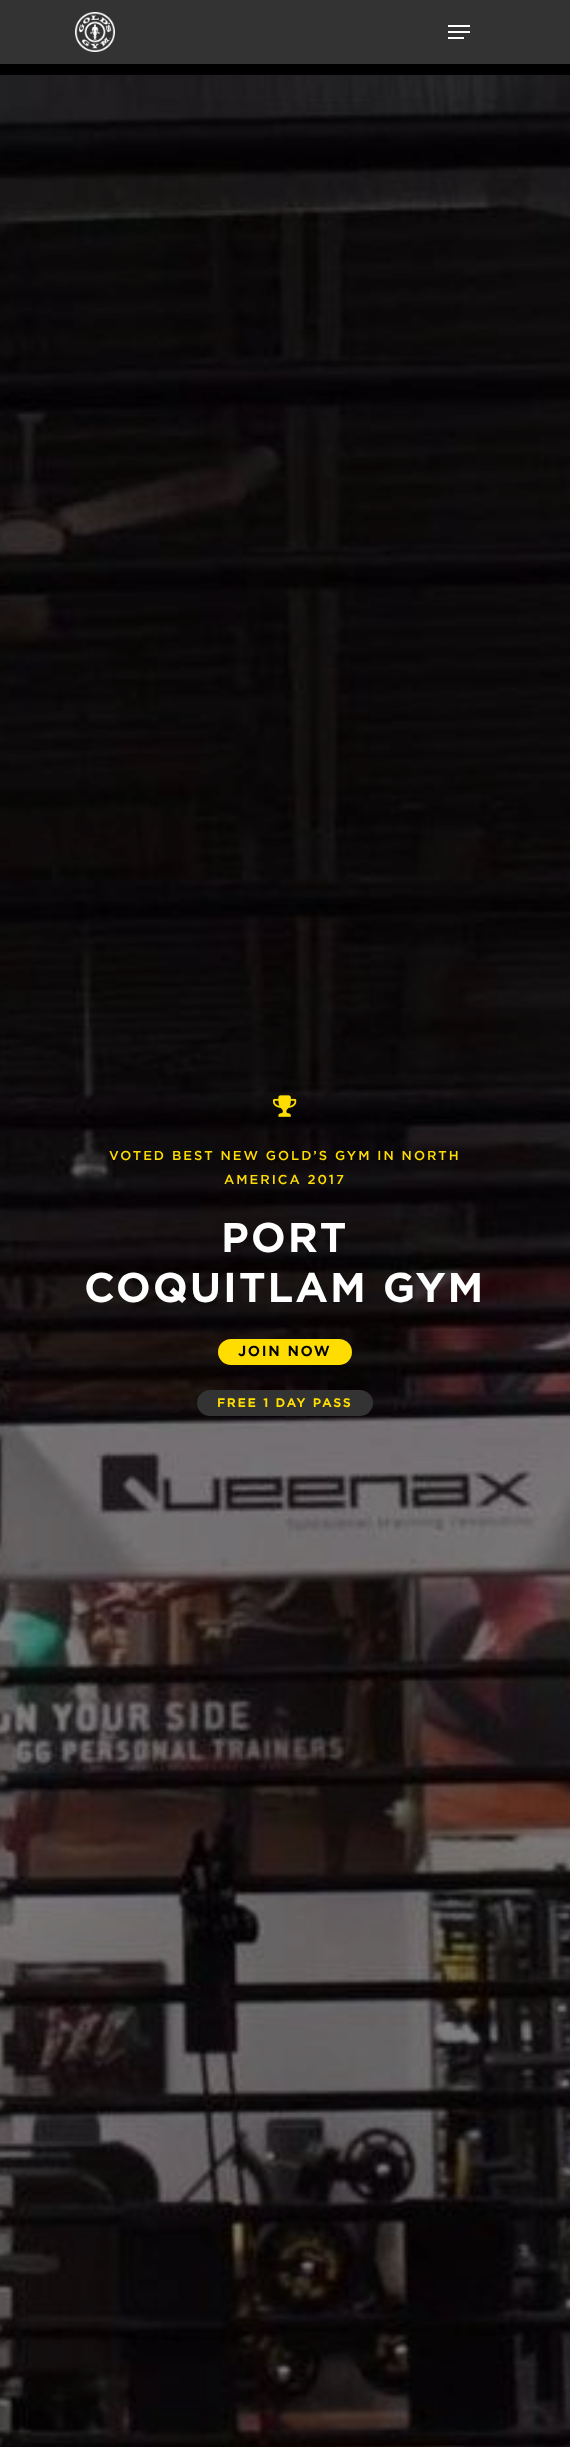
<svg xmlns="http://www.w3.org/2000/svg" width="570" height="2447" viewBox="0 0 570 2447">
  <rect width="100%" height="100%" fill="#000000"/>
  <rect x="0" y="0" width="570" height="64" fill="#333333"/>
  <image x="75" y="12" width="40" height="40" href="img1.png"/>
  <rect x="448" y="25" width="22" height="2" fill="#ffffff"/>
  <rect x="448" y="37" width="16" height="2" fill="#ffffff"/>
  <rect x="448" y="31" width="22" height="2" fill="#ffffff"/>
  <image x="0" y="75" width="570" height="2372" href="img2.png"/>
  <image x="273" y="1095" width="24" height="22" href="img3.png"/>
  <text x="109" y="1160" font-family="Gotham" font-size="13" font-weight="500" letter-spacing="2" fill="#ffdd00">VOTED BEST NEW GOLD’S GYM IN NORTH</text>
  <text x="224" y="1184" font-family="Gotham" font-size="13" font-weight="500" letter-spacing="2" fill="#ffdd00">AMERICA 2017</text>
  <text x="221" y="1252" font-family="Gotham" font-size="40" font-weight="bold" letter-spacing="3" fill="#ffffff">PORT</text>
  <text x="84" y="1302" font-family="Gotham" font-size="40" font-weight="bold" letter-spacing="3" fill="#ffffff">COQUITLAM GYM</text>
  <rect x="218" y="1339" width="134" height="26" rx="13" fill="#ffdd00"/>
  <text x="238" y="1356" font-family="Gotham" font-size="14" font-weight="bold" letter-spacing="2" fill="#000000">JOIN NOW</text>
  <rect x="197" y="1390" width="176" height="26" rx="13" fill="#333333"/>
  <text x="217" y="1407" font-family="Gotham" font-size="12" font-weight="bold" letter-spacing="2" fill="#ffdd00">FREE 1 DAY PASS</text>
</svg>
